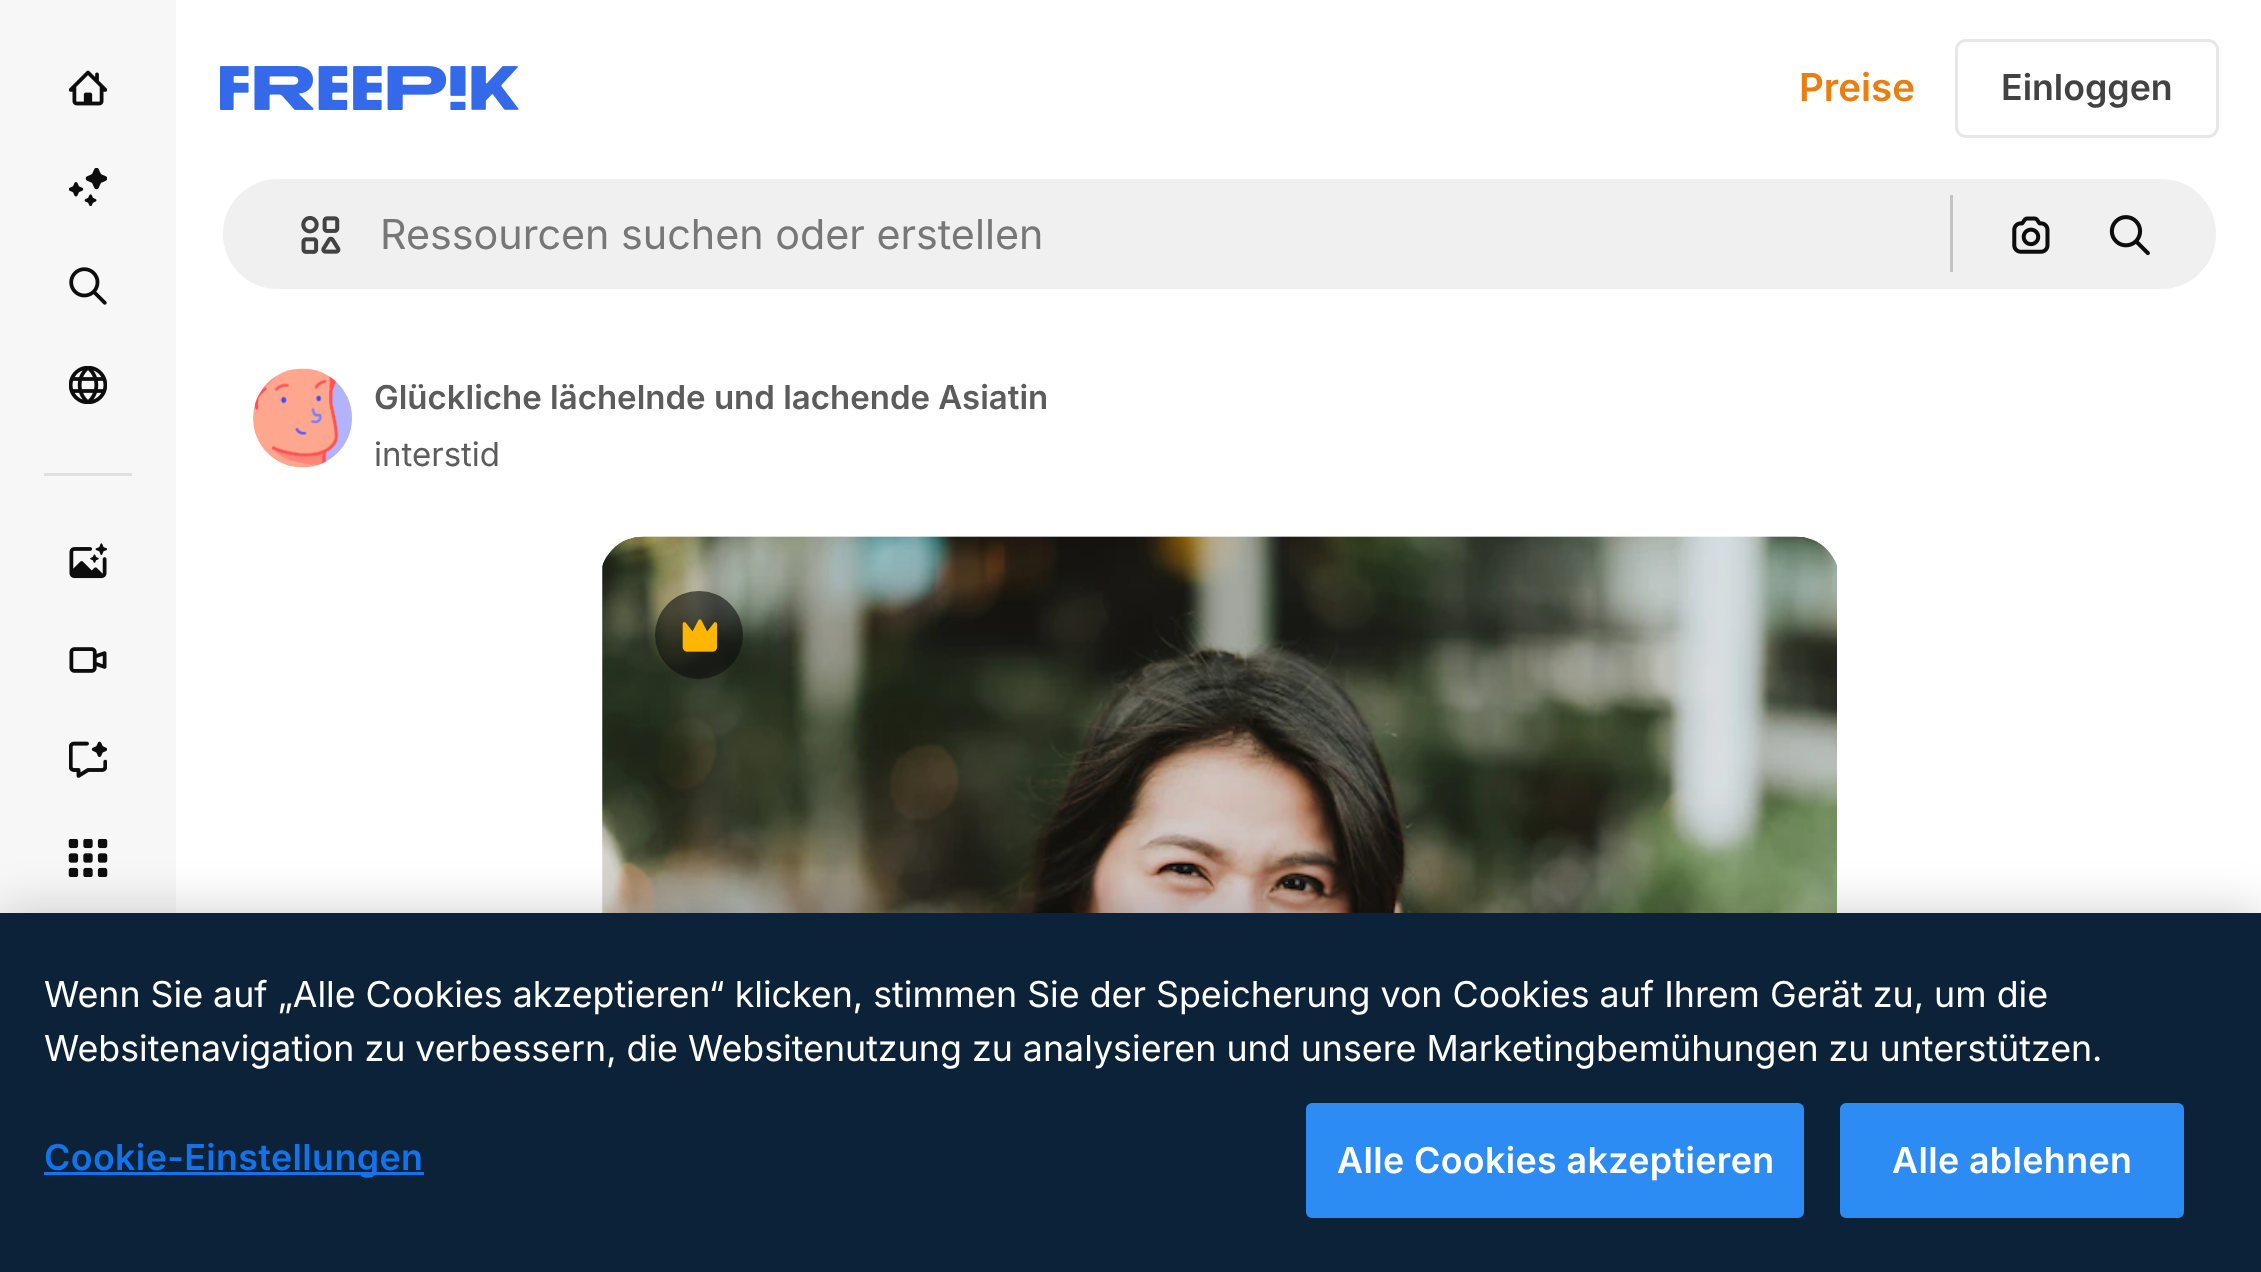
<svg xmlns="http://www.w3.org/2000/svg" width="2261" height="1272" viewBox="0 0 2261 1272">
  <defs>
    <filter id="blur1" x="-50%" y="-200%" width="200%" height="500%"><feGaussianBlur stdDeviation="25"/></filter>
  </defs>
  <rect width="100%" height="100%" fill="#ffffff"/>
  <rect x="0" y="0" width="176" height="913" fill="#f7f7f7"/>
  <image x="69" y="70" width="38" height="36" href="img1.png"/>
  <image x="69" y="168" width="38" height="38" href="img2.png"/>
  <image x="69" y="267" width="38" height="38" href="img3.png"/>
  <image x="69" y="366" width="38" height="38" href="img4.png"/>
  <rect x="44" y="473" width="88" height="3" fill="#e0e0e0"/>
  <image x="69" y="543" width="38" height="36" href="img5.png"/>
  <image x="69" y="647" width="38" height="26" href="img6.png"/>
  <image x="69" y="741" width="38" height="37" href="img7.png"/>
  <image x="68" y="839" width="40" height="38" href="img8.png"/>
  <image x="220" y="66" width="299" height="44" href="img9.png"/>
  <text x="1799" y="101" font-family="Inter" font-size="38.5" font-weight="600" fill="#ea7e11">Preise</text>
  <rect x="1956.5" y="40.5" width="261" height="96" rx="9.5" fill="none" stroke="#e7e7e7" stroke-width="3"/>
  <text x="2001" y="100" font-family="Inter" font-size="35.75" font-weight="600" fill="#424242">Einloggen</text>
  <rect x="221.5" y="177.5" width="1996" height="113" rx="56.5" fill="#f0f0f0" stroke="#ffffff" stroke-width="3"/>
  <image x="301" y="216" width="40" height="38" href="img10.png"/>
  <text x="380" y="249" font-family="Inter" font-size="41.25" fill="#777777">Ressourcen suchen oder erstellen</text>
  <rect x="1950" y="195" width="3" height="77" fill="#c3c3c3"/>
  <image x="2012" y="216" width="38" height="38" href="img11.png"/>
  <image x="2109" y="215" width="41" height="41" href="img12.png"/>
  <image x="253" y="368" width="99" height="100" href="img13.png"/>
  <text x="374" y="409" font-family="Inter" font-size="33" font-weight="600" fill="#5c5c5c">Glückliche lächelnde und lachende Asiatin</text>
  <text x="374" y="466" font-family="Inter" font-size="33" fill="#5c5c5c">interstid</text>
  <image x="602" y="536" width="1235" height="377" href="img14.png"/>
  <circle cx="699" cy="635" r="44" fill="#0d0d0d" fill-opacity="0.6"/>
  <image x="682" y="619" width="36" height="33" href="img15.png"/>
  <rect x="0" y="913" width="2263" height="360" fill="#000000" fill-opacity="0.2" filter="url(#blur1)"/>
  <rect x="0" y="913" width="2261" height="359" fill="#0b2239"/>
  <text x="44" y="1007" font-family="Inter" font-size="35.77" fill="#ffffff">Wenn Sie auf „Alle Cookies akzeptieren“ klicken, stimmen Sie der Speicherung von Cookies auf Ihrem Gerät zu, um die</text>
  <text x="44" y="1061" font-family="Inter" font-size="35.77" fill="#ffffff">Websitenavigation zu verbessern, die Websitenutzung zu analysieren und unsere Marketingbemühungen zu unterstützen.</text>
  <rect x="44" y="1172" width="380" height="3" fill="#1273eb"/>
  <text x="44" y="1170" font-family="Inter" font-size="35.77" font-weight="600" letter-spacing="0.4" fill="#1273eb">Cookie-Einstellungen</text>
  <rect x="1307.5" y="1104.5" width="495" height="112" rx="4.5" fill="#2c8cf4" stroke="#2c8cf4" stroke-width="3"/>
  <text x="1337" y="1173" font-family="Inter" font-size="35.77" font-weight="600" letter-spacing="0.4" fill="#ffffff">Alle Cookies akzeptieren</text>
  <rect x="1841.5" y="1104.5" width="341" height="112" rx="4.5" fill="#2c8cf4" stroke="#2c8cf4" stroke-width="3"/>
  <text x="1892" y="1173" font-family="Inter" font-size="35.77" font-weight="600" letter-spacing="0.4" fill="#ffffff">Alle ablehnen</text>
</svg>
